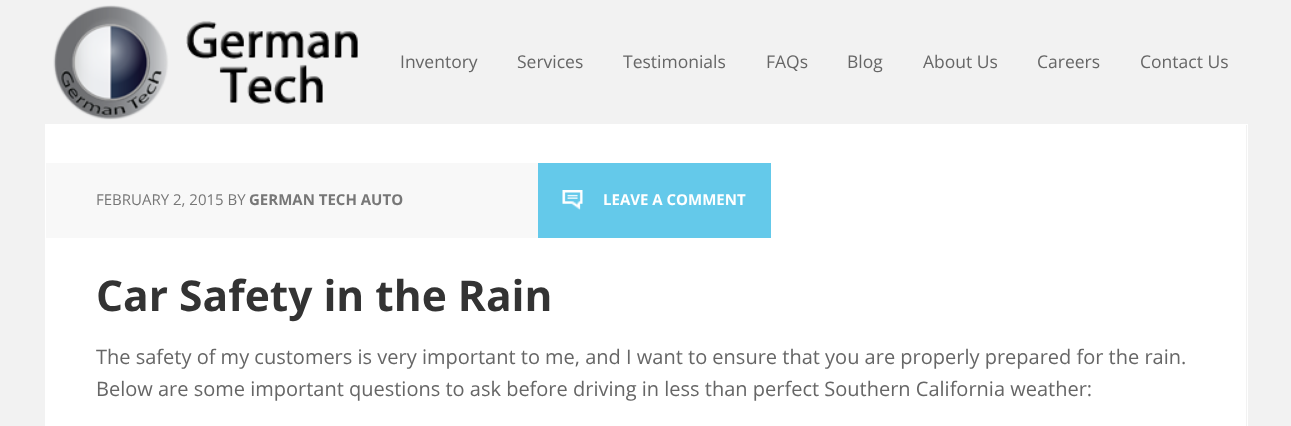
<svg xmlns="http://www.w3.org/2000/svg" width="1291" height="426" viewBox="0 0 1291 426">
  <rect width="100%" height="100%" fill="#f2f2f2"/>
  <image x="53" y="5" width="305" height="115" href="img1.png"/>
  <text x="400" y="68" font-family="Open Sans" font-size="17.5" fill="#666666">Inventory</text>
  <text x="517" y="68" font-family="Open Sans" font-size="17.5" fill="#666666">Services</text>
  <text x="623" y="68" font-family="Open Sans" font-size="17.5" fill="#666666">Testimonials</text>
  <text x="766" y="68" font-family="Open Sans" font-size="17.5" fill="#666666">FAQs</text>
  <text x="847" y="68" font-family="Open Sans" font-size="17.5" fill="#666666">Blog</text>
  <text x="923" y="68" font-family="Open Sans" font-size="17.5" fill="#666666">About Us</text>
  <text x="1037" y="68" font-family="Open Sans" font-size="17.5" fill="#666666">Careers</text>
  <text x="1140" y="68" font-family="Open Sans" font-size="17.5" fill="#666666">Contact Us</text>
  <rect x="45.5" y="124.5" width="1202" height="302" fill="none" stroke="#ffffff"/>
  <rect x="46" y="125" width="1200" height="301" fill="#ffffff"/>
  <rect x="46" y="163" width="492" height="75" fill="#f8f8f8"/>
  <text x="96" y="205" font-family="Open Sans" font-size="15" fill="#777777">FEBRUARY 2, 2015 BY</text>
  <text x="249" y="205" font-family="Open Sans" font-size="15" font-weight="bold" fill="#777777">GERMAN TECH AUTO</text>
  <rect x="538" y="163" width="233" height="75" fill="#64c9ea"/>
  <image x="562" y="190" width="21" height="20" href="img2.png"/>
  <text x="603" y="205" font-family="Open Sans" font-size="15" font-weight="bold" fill="#ffffff">LEAVE A COMMENT</text>
  <text x="96" y="311" font-family="Open Sans" font-size="42.5" font-weight="bold" fill="#333333">Car Safety in the Rain</text>
  <text x="96" y="364" font-family="Open Sans" font-size="20" fill="#666666">The safety of my customers is very important to me, and I want to ensure that you are properly prepared for the rain.</text>
  <text x="96" y="396" font-family="Open Sans" font-size="20" fill="#666666">Below are some important questions to ask before driving in less than perfect Southern California weather:</text>
</svg>
